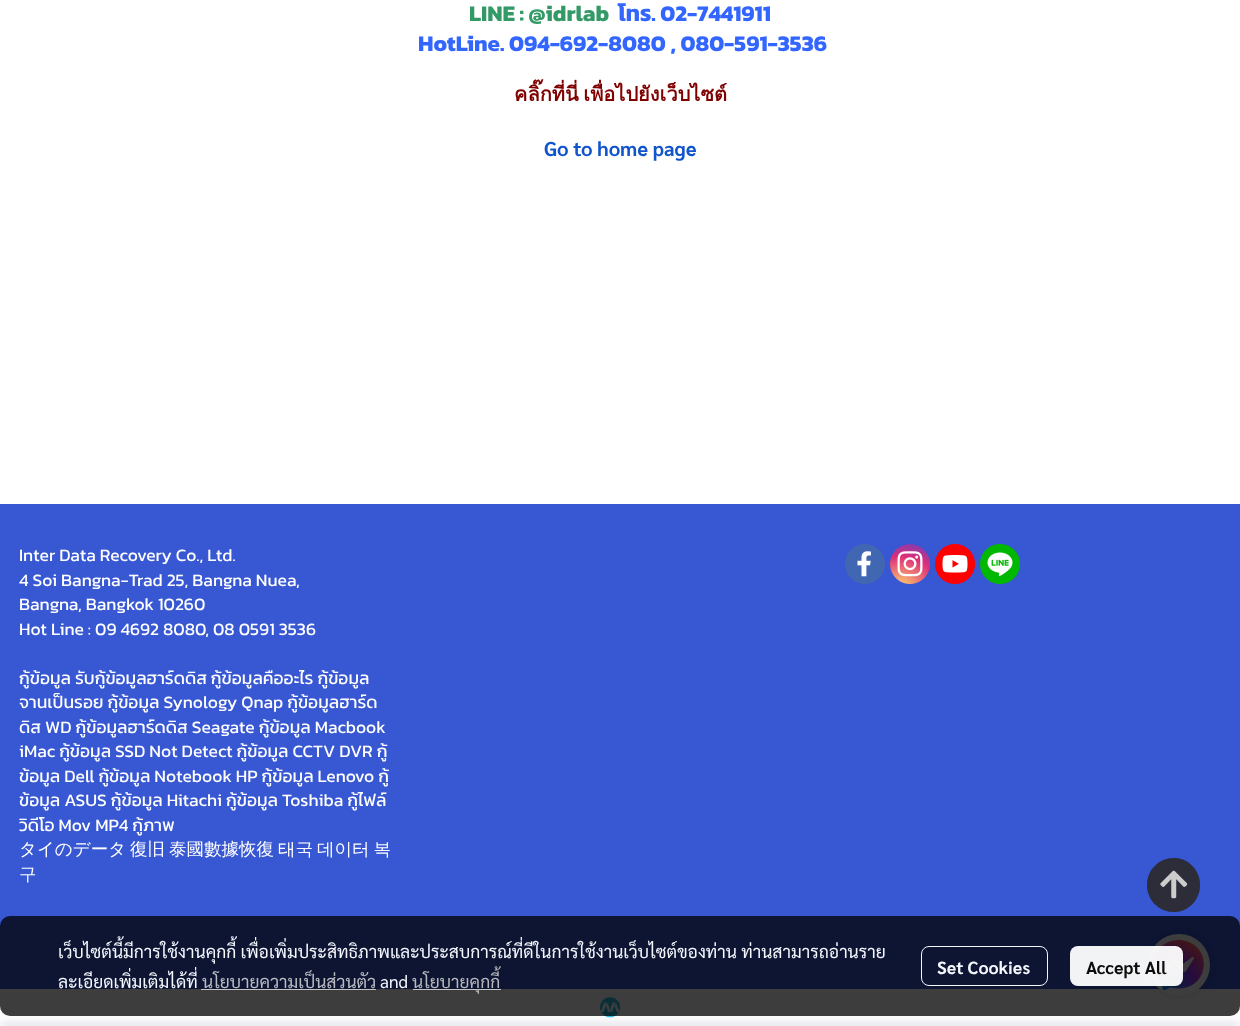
<svg xmlns="http://www.w3.org/2000/svg" width="1240" height="1026" viewBox="0 0 1240 1026">
  <defs>
    <filter id="blur1" x="-50%" y="-200%" width="200%" height="500%"><feGaussianBlur stdDeviation="4.5"/></filter>
    <clipPath id="clip1"><rect x="19" y="544" width="376" height="342"/></clipPath>
    <filter id="blur2" x="-50%" y="-200%" width="200%" height="500%"><feGaussianBlur stdDeviation="6"/></filter>
  </defs>
  <rect width="100%" height="100%" fill="#ffffff"/>
  <text x="469" y="21" font-family="Kanit" font-size="22.5" font-weight="bold" fill="#339966">LINE : @idrlab</text>
  <text x="618" y="21" font-family="Kanit" font-size="22.5" font-weight="bold" fill="#3366ff">โทร. 02-7441911</text>
  <text x="418" y="51" font-family="Kanit" font-size="22.5" font-weight="bold" fill="#3366ff">HotLine. 094-692-8080 , 080-591-3536</text>
  <text x="514" y="101" word-spacing="-2" font-family="Loma" font-size="20" font-weight="bold" fill="#800000">คลิ๊กที่นี่ เพื่อไปยังเว็บไซต์</text>
  <text x="544" y="156" font-family="Sarabun" font-size="20" font-weight="bold" fill="#1155cc">Go to home page</text>
  <rect x="0" y="504" width="1240" height="485" fill="#3757d3"/>
  <path d="M1174 858C1159 858 1147 870 1147 885C1147 900 1159 912 1174 912C1188 912 1200 900 1200 885C1200 870 1188 858 1174 858Z" fill="#2f385d"/>
  <image x="1160" y="870" width="28" height="29" href="img1.png"/>
  <rect x="1148" y="934" width="62" height="62" rx="31" fill="#000000" fill-opacity="0.14" filter="url(#blur1)"/>
  <circle cx="1179" cy="965" r="31" fill="#ffffff"/>
  <image x="1153" y="940" width="51" height="50" href="img2.png"/>
  <text x="19" y="561" font-family="Kanit" font-size="17.5" fill="#ffffff">Inter Data Recovery Co., Ltd.</text>
  <text x="19" y="586" font-family="Kanit" font-size="17.5" fill="#ffffff">4 Soi Bangna-Trad 25, Bangna Nuea,</text>
  <text x="19" y="610" font-family="Kanit" font-size="17.5" fill="#ffffff">Bangna, Bangkok 10260</text>
  <text x="19" y="635" font-family="Kanit" font-size="17.5" fill="#ffffff">Hot Line : 09 4692 8080, 08 0591 3536</text>
  <g clip-path="url(#clip1)">
    <text x="19" y="684" font-family="Kanit" font-size="17.5" fill="#ffffff">กู้ข้อมูล รับกู้ข้อมูลฮาร์ดดิส กู้ข้อมูลคืออะไร กู้ข้อมูล</text>
  </g>
  <text x="19" y="708" font-family="Kanit" font-size="17.5" fill="#ffffff">จานเป็นรอย กู้ข้อมูล Synology Qnap กู้ข้อมูลฮาร์ด</text>
  <g clip-path="url(#clip1)">
    <text x="19" y="733" font-family="Kanit" font-size="17.5" fill="#ffffff">ดิส WD กู้ข้อมูลฮาร์ดดิส Seagate กู้ข้อมูล Macbook</text>
  </g>
  <text x="19" y="757" font-family="Kanit" font-size="17.5" fill="#ffffff">iMac กู้ข้อมูล SSD Not Detect กู้ข้อมูล CCTV DVR กู้</text>
  <g clip-path="url(#clip1)">
    <text x="19" y="782" font-family="Kanit" font-size="17.5" fill="#ffffff">ข้อมูล Dell กู้ข้อมูล Notebook HP กู้ข้อมูล Lenovo กู้</text>
    <text x="19" y="806" font-family="Kanit" font-size="17.5" fill="#ffffff">ข้อมูล ASUS กู้ข้อมูล Hitachi กู้ข้อมูล Toshiba กู้ไฟล์</text>
    <text x="19" y="831" font-family="Kanit" font-size="17.5" fill="#ffffff">วิดีโอ Mov MP4 กู้ภาพ</text>
  </g>
  <text x="19" y="855" word-spacing="-1.25" font-family="WenQuanYi Zen Hei" font-size="17.5" font-weight="500" fill="#ffffff">タイのデータ 復旧 泰國數據恢復 태국 데이터 복</text>
  <text x="19" y="880" font-family="WenQuanYi Zen Hei" font-size="17.5" font-weight="500" fill="#ffffff">구</text>
  <image x="845" y="544" width="40" height="40" href="img3.png"/>
  <image x="890" y="544" width="40" height="40" href="img4.png"/>
  <image x="935" y="544" width="40" height="40" href="img5.png"/>
  <image x="980" y="544" width="40" height="40" href="img6.png"/>
  <path d="M1174 858C1159 858 1147 870 1147 885C1147 900 1159 912 1174 912C1188 912 1200 900 1200 885C1200 870 1188 858 1174 858Z" fill="#2b2a2a" fill-opacity="0.7"/>
  <image x="1160" y="870" width="28" height="29" href="img7.png"/>
  <image x="600" y="997" width="20" height="21" href="img8.png"/>
  <rect x="0" y="1024" width="1240" height="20" fill="#00354a" fill-opacity="0.15" filter="url(#blur2)"/>
  <rect x="0" y="916" width="1240" height="100" rx="10" fill="#000000" fill-opacity="0.76"/>
  <text x="58" y="958" font-family="Sarabun" font-size="17.5" fill="#f5f7fd">เว็บไซต์นี้มีการใช้งานคุกกี้ เพื่อเพิ่มประสิทธิภาพและประสบการณ์ที่ดีในการใช้งานเว็บไซต์ของท่าน ท่านสามารถอ่านราย</text>
  <text x="58" y="988" font-family="Sarabun" font-size="17.5" fill="#f5f7fd">ละเอียดเพิ่มเติมได้ที่</text>
  <text x="202" y="988" font-family="Sarabun" font-size="17.5" fill="#bbbdc3">นโยบายความเป็นส่วนตัว</text>
  <text x="380" y="988" font-family="Sarabun" font-size="17.5" fill="#f5f7fd">and</text>
  <rect x="201" y="989" width="175" height="1" fill="#c5c5c5"/>
  <rect x="413" y="989" width="88" height="1" fill="#c5c5c5"/>
  <text x="412" y="988" font-family="Sarabun" font-size="17.5" fill="#b9b9bb">นโยบายคุกกี้</text>
  <rect x="921.5" y="946.5" width="126" height="39" rx="7.5" fill="none" stroke="#f5f7fd"/>
  <text x="937" y="974" font-family="Sarabun" font-size="17.5" font-weight="bold" fill="#f5f7fd">Set Cookies</text>
  <rect x="1070" y="946" width="113" height="40" rx="8" fill="#ffffff" fill-opacity="0.95"/>
  <text x="1086" y="974" font-family="Sarabun" font-size="17.5" font-weight="bold" fill="#0c0c0c">Accept All</text>
</svg>
